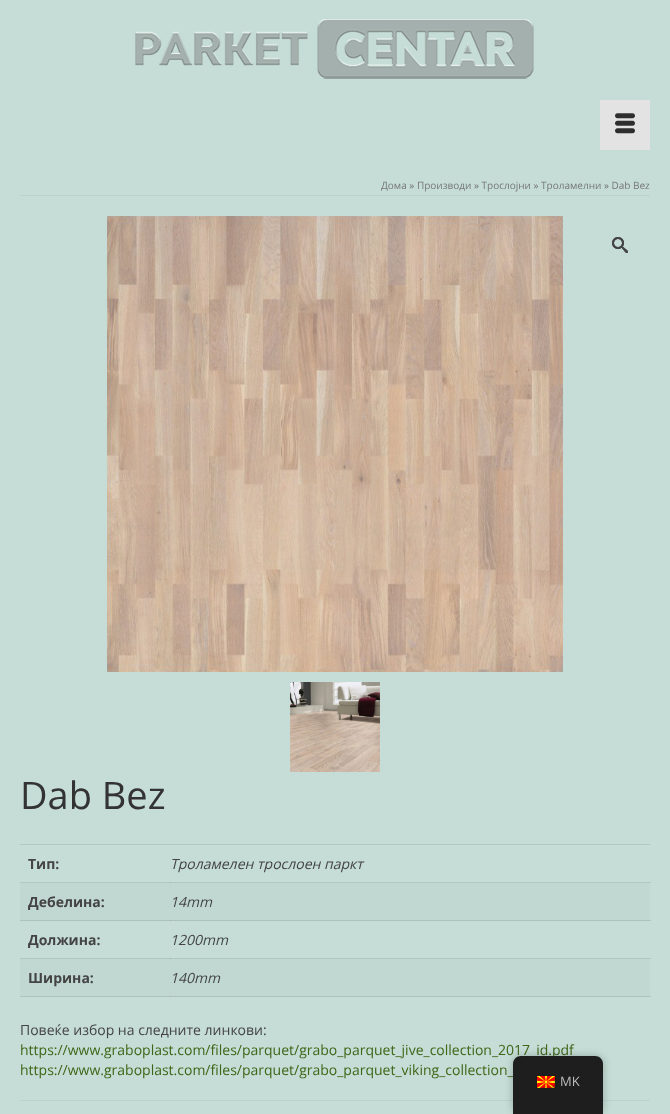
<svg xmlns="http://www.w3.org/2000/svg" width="670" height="1114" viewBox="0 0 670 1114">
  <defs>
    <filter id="blur1" x="-50%" y="-200%" width="200%" height="500%"><feGaussianBlur stdDeviation="4"/></filter>
  </defs>
  <rect width="100%" height="100%" fill="#c5ddd6"/>
  <rect x="20" y="882" width="631" height="1" fill="#b1c7c1"/>
  <rect x="650" y="920" width="1" height="1" fill="#b1c7c1"/>
  <rect x="20" y="958" width="631" height="1" fill="#b1c7c1"/>
  <rect x="650" y="996" width="1" height="1" fill="#b1c7c1"/>
  <image x="135" y="19" width="399" height="60" href="img1.png"/>
  <rect x="600" y="100" width="50" height="50" fill="#e3e3e3"/>
  <image x="615" y="113" width="20" height="21" href="img2.png"/>
  <rect x="20" y="195" width="630" height="1" fill="#bbd2cb"/>
  <text x="381" y="189" font-family="Open Sans" font-size="10" fill="#777777">Дома » Производи » Трослојни » Троламелни » Dab Bez</text>
  <image x="107" y="216" width="456" height="456" href="img3.png"/>
  <image x="612" y="237" width="16" height="16" href="img4.png"/>
  <image x="612" y="237" width="16" height="16" href="img5.png"/>
  <image x="290" y="682" width="90" height="90" href="img6.png"/>
  <text x="20" y="809" font-family="Open Sans" font-size="38" fill="#333333">Dab Bez</text>
  <rect x="20" y="844" width="630" height="1" fill="#b1c7c1"/>
  <text x="28" y="869" font-family="Open Sans" font-size="14" font-weight="bold" fill="#444444">Тип:</text>
  <rect x="170" y="882" width="1" height="1" fill="#9fb3ae"/>
  <text x="170" y="869" font-family="Open Sans" font-size="14" font-style="italic" fill="#444444">Троламелен трослоен паркт</text>
  <rect x="20" y="883" width="630" height="37" fill="#c0d8d1"/>
  <rect x="20" y="920" width="630" height="1" fill="#adc2bc"/>
  <text x="28" y="907" font-family="Open Sans" font-size="14" font-weight="bold" fill="#444444">Дебелина:</text>
  <rect x="170" y="920" width="1" height="1" fill="#9cafa9"/>
  <text x="170" y="907" font-family="Open Sans" font-size="14" font-style="italic" fill="#444444">14mm</text>
  <text x="28" y="945" font-family="Open Sans" font-size="14" font-weight="bold" fill="#444444">Должина:</text>
  <rect x="170" y="958" width="1" height="1" fill="#9fb3ae"/>
  <text x="170" y="945" font-family="Open Sans" font-size="14" font-style="italic" fill="#444444">1200mm</text>
  <rect x="20" y="959" width="630" height="37" fill="#c0d8d1"/>
  <rect x="20" y="996" width="630" height="1" fill="#adc2bc"/>
  <text x="28" y="983" font-family="Open Sans" font-size="14" font-weight="bold" fill="#444444">Ширина:</text>
  <rect x="170" y="996" width="1" height="1" fill="#9cafa9"/>
  <text x="170" y="983" font-family="Open Sans" font-size="14" font-style="italic" fill="#444444">140mm</text>
  <text x="20" y="1035" font-family="Open Sans" font-size="14" fill="#444444">Повеќе избор на следните линкови:</text>
  <text x="20" y="1055" font-family="Open Sans" font-size="14" fill="#3e6617">https://www.graboplast.com/files/parquet/grabo_parquet_jive_collection_2017_id.pdf</text>
  <text x="20" y="1075" font-family="Open Sans" font-size="14" fill="#3e6617">https://www.graboplast.com/files/parquet/grabo_parquet_viking_collection_</text>
  <rect x="20" y="1100" width="630" height="1" fill="#bbd2cb"/>
  <rect x="513" y="1056" width="90" height="58" rx="8" fill="#000000" fill-opacity="0.25" filter="url(#blur1)"/>
  <path d="M521 1056H595C599.5 1056 603 1059.5 603 1064V1114H513V1064C513 1059.5 516.5 1056 521 1056Z" fill="#1e1e1e"/>
  <image x="537" y="1076" width="18" height="12" href="img7.png"/>
  <text x="560" y="1086" font-family="Open Sans" font-size="13" fill="#bdbdbd">MK</text>
</svg>
